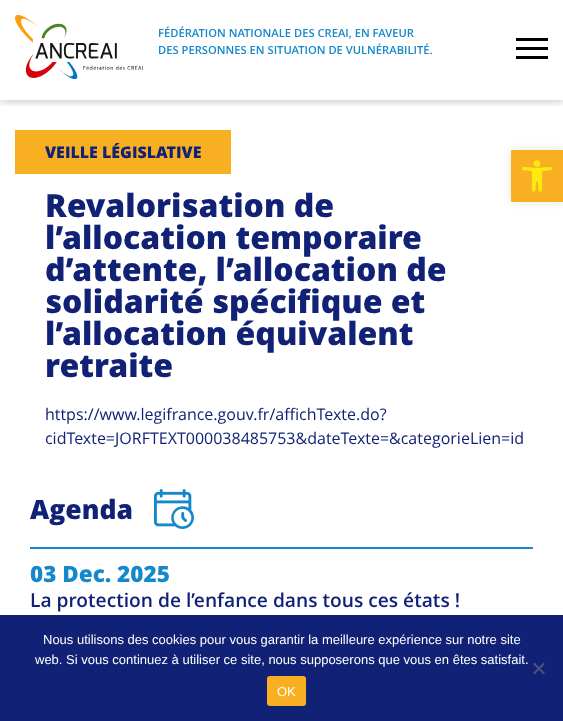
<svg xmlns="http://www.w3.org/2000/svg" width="563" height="721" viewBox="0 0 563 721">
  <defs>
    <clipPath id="clip1"><rect x="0" y="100" width="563" height="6"/></clipPath>
    <filter id="blur1" x="-50%" y="-200%" width="200%" height="500%"><feGaussianBlur stdDeviation="3"/></filter>
    <filter id="blur2" x="-50%" y="-200%" width="200%" height="500%"><feGaussianBlur stdDeviation="5"/></filter>
  </defs>
  <rect width="100%" height="100%" fill="#ffffff"/>
  <g clip-path="url(#clip1)">
    <rect x="0" y="3" width="563" height="100" fill="#000000" fill-opacity="0.16" filter="url(#blur1)"/>
  </g>
  <image x="15" y="15" width="128" height="64" href="img1.png"/>
  <text x="158" y="37" font-family="Open Sans" font-size="11.2" font-weight="600" fill="#1488ca">FÉDÉRATION NATIONALE DES CREAI, EN FAVEUR</text>
  <text x="158" y="54" font-family="Open Sans" font-size="11.2" font-weight="600" fill="#1488ca">DES PERSONNES EN SITUATION DE VULNÉRABILITÉ.</text>
  <rect x="516" y="38" width="32" height="3" fill="#000000"/>
  <rect x="516" y="47" width="32" height="3" fill="#000000"/>
  <rect x="516" y="56" width="32" height="3" fill="#000000"/>
  <rect x="15" y="130" width="216" height="44" fill="#f9af22"/>
  <text x="45" y="158" font-family="Open Sans" font-size="16" font-weight="800" fill="#112176">VEILLE LÉGISLATIVE</text>
  <text x="45" y="217" font-family="Open Sans" font-size="32" font-weight="800" fill="#112176">Revalorisation de</text>
  <text x="45" y="249" font-family="Open Sans" font-size="32" font-weight="800" fill="#112176">l’allocation temporaire</text>
  <text x="45" y="281" font-family="Open Sans" font-size="32" font-weight="800" fill="#112176">d’attente, l’allocation de</text>
  <text x="45" y="313" font-family="Open Sans" font-size="32" font-weight="800" fill="#112176">solidarité spécifique et</text>
  <text x="45" y="345" font-family="Open Sans" font-size="32" font-weight="800" fill="#112176">l’allocation équivalent</text>
  <text x="45" y="377" font-family="Open Sans" font-size="32" font-weight="800" fill="#112176">retraite</text>
  <text x="45" y="420" font-family="Open Sans" font-size="16" fill="#112176">https://www.legifrance.gouv.fr/affichTexte.do?</text>
  <text x="45" y="444" font-family="Open Sans" font-size="16" fill="#112176">cidTexte=JORFTEXT000038485753&amp;dateTexte=&amp;categorieLien=id</text>
  <text x="30" y="519" font-family="Open Sans" font-size="26.5" font-weight="800" fill="#112176">Agenda</text>
  <image x="154" y="489" width="40" height="40" href="img2.png"/>
  <rect x="30" y="547" width="503" height="2" fill="#1488ca"/>
  <text x="30" y="582" font-family="Open Sans" font-size="22.5" font-weight="800" fill="#1488ca">03 Dec. 2025</text>
  <text x="30" y="607" font-family="Open Sans" font-size="19.2" font-weight="600" fill="#112176">La protection de l’enfance dans tous ces états !</text>
  <rect x="511" y="150" width="52" height="52" fill="#000000" fill-opacity="0.1" filter="url(#blur2)"/>
  <rect x="511" y="150" width="52" height="52" fill="#f9af22"/>
  <image x="522" y="160" width="30" height="32" href="img3.png"/>
  <rect x="0" y="615" width="563" height="106" fill="#112176"/>
  <text x="43" y="644" font-family="Liberation Sans" font-size="13" fill="#ffffff">Nous utilisons des cookies pour vous garantir la meilleure expérience sur notre site</text>
  <text x="35" y="664" font-family="Liberation Sans" font-size="13" fill="#ffffff">web. Si vous continuez à utiliser ce site, nous supposerons que vous en êtes satisfait.</text>
  <path d="M543.5 662.5L545 664L534.5 674.5L533 673Z" fill="#49517b"/>
  <path d="M533 664L534.5 662.5L545 673L543.5 674.5Z" fill="#49517b"/>
  <rect x="267" y="676" width="39" height="30" rx="3" fill="#f9af22"/>
  <text x="277" y="696" font-family="Liberation Sans" font-size="13" fill="#ffffff">OK</text>
</svg>
